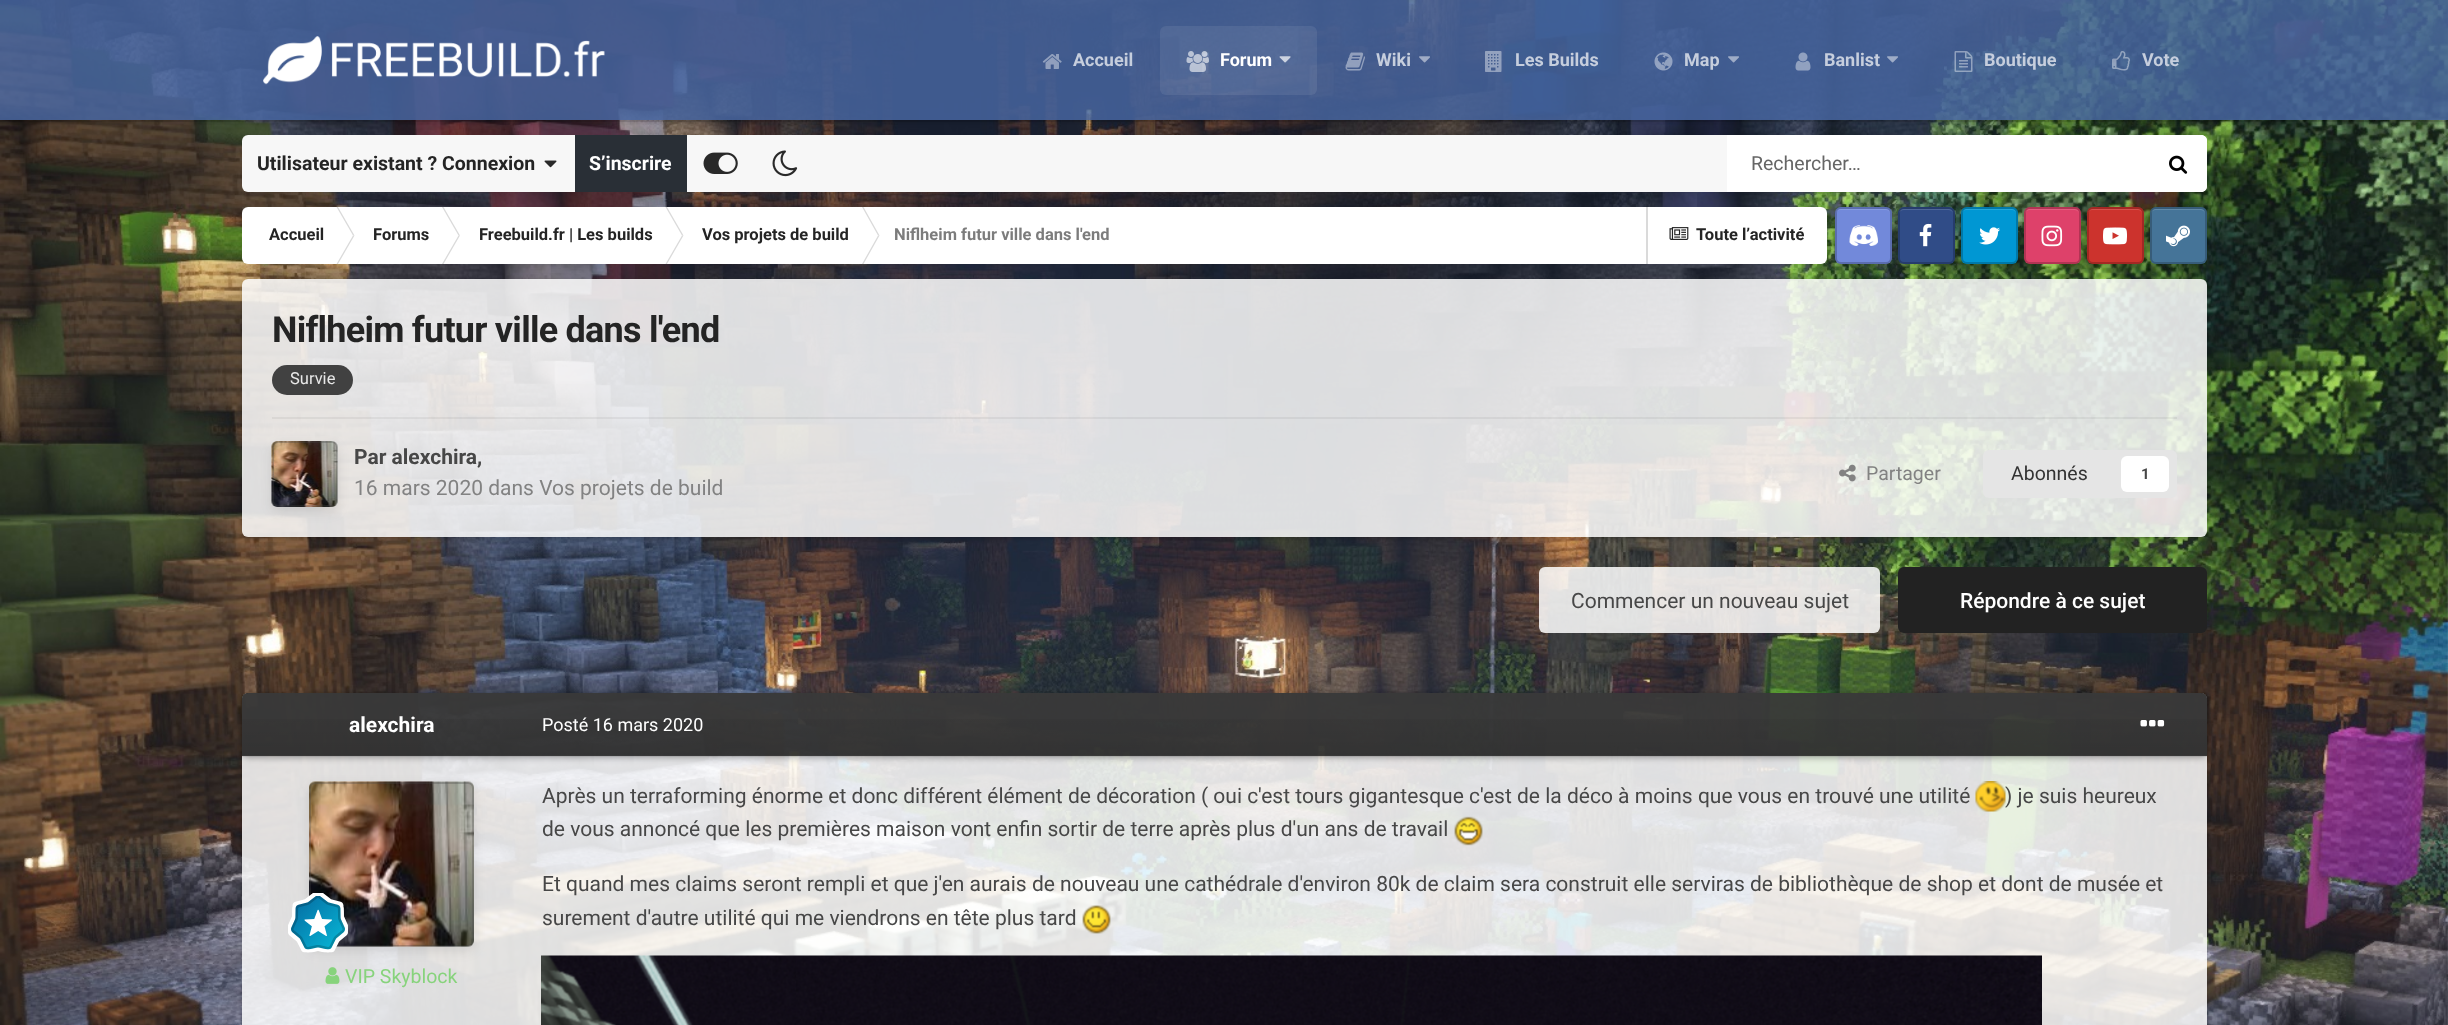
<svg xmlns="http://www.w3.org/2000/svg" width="2448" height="1025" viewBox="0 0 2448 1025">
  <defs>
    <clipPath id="clip1"><rect x="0" y="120" width="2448" height="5"/></clipPath>
    <filter id="blur1" x="-50%" y="-200%" width="200%" height="500%"><feGaussianBlur stdDeviation="3"/></filter>
    <linearGradient id="g1" gradientUnits="userSpaceOnUse" x1="1034" y1="207" x2="1034" y2="264"><stop offset="0" stop-color="#ffffff" stop-opacity="0.05"/><stop offset="1" stop-color="#ffffff" stop-opacity="0"/></linearGradient>
    <filter id="blur2" x="-50%" y="-200%" width="200%" height="500%"><feGaussianBlur stdDeviation="2"/></filter>
    <clipPath id="clip2"><path d="M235 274H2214V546H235ZM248 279H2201C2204.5 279 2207 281.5 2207 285V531C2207 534.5 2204.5 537 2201 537H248C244.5 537 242 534.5 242 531V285C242 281.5 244.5 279 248 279Z" clip-rule="evenodd"/></clipPath>
    <clipPath id="clip3"><path d="M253 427H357V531H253ZM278 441H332C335.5 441 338 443.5 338 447V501C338 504.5 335.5 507 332 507H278C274.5 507 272 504.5 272 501V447C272 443.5 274.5 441 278 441Z" clip-rule="evenodd"/></clipPath>
    <filter id="blur3" x="-50%" y="-200%" width="200%" height="500%"><feGaussianBlur stdDeviation="6"/></filter>
    <clipPath id="clip4"><path d="M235 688H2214V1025H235ZM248 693H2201C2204.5 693 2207 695.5 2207 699V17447C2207 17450.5 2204.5 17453 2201 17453H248C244.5 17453 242 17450.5 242 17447V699C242 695.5 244.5 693 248 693Z" clip-rule="evenodd"/></clipPath>
    <clipPath id="clip5"><path d="M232 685H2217V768H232ZM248 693H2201C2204.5 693 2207 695.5 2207 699V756H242V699C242 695.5 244.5 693 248 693Z" clip-rule="evenodd"/></clipPath>
    <linearGradient id="g2" gradientUnits="userSpaceOnUse" x1="1224" y1="693" x2="1224" y2="755"><stop offset="0" stop-color="#000000" stop-opacity="0"/><stop offset="1" stop-color="#000000" stop-opacity="0.1"/></linearGradient>
    <clipPath id="clip6"><path d="M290 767H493V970H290ZM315 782H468C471.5 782 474 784.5 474 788V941C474 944.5 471.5 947 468 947H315C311.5 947 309 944.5 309 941V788C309 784.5 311.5 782 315 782Z" clip-rule="evenodd"/></clipPath>
  </defs>
  <rect width="100%" height="100%" fill="#ffffff"/>
  <image x="0" y="0" width="2448" height="1025" href="img1.png"/>
  <rect x="0" y="120" width="2448" height="2" fill="#000000" fill-opacity="0.1"/>
  <g clip-path="url(#clip1)">
    <rect x="0" y="2" width="2448" height="120" fill="#000000" fill-opacity="0.15" filter="url(#blur1)"/>
  </g>
  <rect x="0" y="0" width="2448" height="120" fill="#4765a0" fill-opacity="0.85"/>
  <image x="263" y="36" width="342" height="49" href="img2.png"/>
  <image x="1042" y="54" width="20" height="15" href="img3.png"/>
  <text x="1073" y="66" font-family="Roboto" font-size="18" font-weight="bold" fill="#c6cedd">Accueil</text>
  <rect x="1160" y="26" width="157" height="69" rx="6" fill="#ffffff" fill-opacity="0.08"/>
  <image x="1186" y="51" width="23" height="21" href="img4.png"/>
  <text x="1220" y="66" font-family="Roboto" font-size="18" font-weight="bold" fill="#ffffff">Forum</text>
  <image x="1279" y="56" width="12" height="7" href="img5.png"/>
  <image x="1345" y="52" width="20" height="19" href="img6.png"/>
  <text x="1376" y="66" font-family="Roboto" font-size="18" font-weight="bold" fill="#c6cedd">Wiki</text>
  <image x="1419" y="56" width="11" height="7" href="img7.png"/>
  <image x="1485" y="51" width="17" height="21" href="img8.png"/>
  <text x="1515" y="66" font-family="Roboto" font-size="18" font-weight="bold" fill="#c6cedd">Les Builds</text>
  <image x="1654" y="52" width="19" height="19" href="img9.png"/>
  <text x="1684" y="66" font-family="Roboto" font-size="18" font-weight="bold" fill="#c6cedd">Map</text>
  <image x="1728" y="56" width="11" height="7" href="img10.png"/>
  <image x="1795" y="52" width="16" height="19" href="img11.png"/>
  <text x="1824" y="66" font-family="Roboto" font-size="18" font-weight="bold" fill="#c6cedd">Banlist</text>
  <image x="1887" y="56" width="11" height="7" href="img12.png"/>
  <image x="1954" y="51" width="19" height="21" href="img13.png"/>
  <text x="1984" y="66" font-family="Roboto" font-size="18" font-weight="bold" fill="#c6cedd">Boutique</text>
  <image x="2112" y="51" width="18" height="20" href="img14.png"/>
  <text x="2142" y="66" font-family="Roboto" font-size="18" font-weight="bold" fill="#c6cedd">Vote</text>
  <rect x="242" y="135" width="1965" height="57" rx="6" fill="#f7f7f7"/>
  <text x="257" y="170" font-family="Roboto" font-size="19.5" font-weight="bold" fill="#242424">Utilisateur existant ? Connexion</text>
  <image x="544" y="160" width="13" height="8" href="img15.png"/>
  <rect x="575" y="135" width="112" height="57" fill="#292f36"/>
  <text x="589" y="170" font-family="Roboto" font-size="19.5" font-weight="bold" fill="#ffffff">S’inscrire</text>
  <image x="703" y="152" width="35" height="22" href="img16.png"/>
  <image x="772" y="150" width="26" height="27" href="img17.png"/>
  <path d="M1727 135H2201C2204.5 135 2207 137.5 2207 141V186C2207 189.5 2204.5 192 2201 192H1727Z" fill="#ffffff"/>
  <text x="1751" y="170" font-family="Roboto" font-size="19.5" fill="#666666">Rechercher…</text>
  <image x="2169" y="155" width="19" height="19" href="img18.png"/>
  <rect x="242" y="207" width="1585" height="57" rx="6" fill="#ffffff"/>
  <rect x="242" y="207" width="1585" height="4" fill="url(#g1)"/>
  <text x="269" y="240" font-family="Roboto" font-size="16.5" font-weight="bold" fill="#242424">Accueil</text>
  <path d="M336.5 207H338L354.5 235.5H353Z" fill="#dadada"/>
  <path d="M336.5 264H338L354.5 235.5H353Z" fill="#dadada"/>
  <text x="373" y="240" font-family="Roboto" font-size="16.5" font-weight="bold" fill="#242424">Forums</text>
  <path d="M442 207H443.5L460 235.5H458.5Z" fill="#dadada"/>
  <path d="M442 264H443.5L460 235.5H458.5Z" fill="#dadada"/>
  <text x="479" y="240" font-family="Roboto" font-size="16.5" font-weight="bold" fill="#242424">Freebuild.fr | Les builds</text>
  <path d="M665.5 207H667L683.5 235.5H682Z" fill="#dadada"/>
  <path d="M665.5 264H667L683.5 235.5H682Z" fill="#dadada"/>
  <text x="702" y="240" font-family="Roboto" font-size="16.5" font-weight="bold" fill="#242424">Vos projets de build</text>
  <path d="M862 207H863.5L879.5 235.5H878Z" fill="#dadada"/>
  <path d="M862 264H863.5L879.5 235.5H878Z" fill="#dadada"/>
  <text x="894" y="240" font-family="Roboto" font-size="16.5" font-weight="bold" fill="#7c7c7c">Niflheim futur ville dans l'end</text>
  <rect x="1646" y="207" width="2" height="57" fill="#dadada"/>
  <image x="1669" y="227" width="20" height="13" href="img19.png"/>
  <text x="1696" y="240" font-family="Roboto" font-size="16.5" font-weight="bold" fill="#242424">Toute l’activité</text>
  <rect x="1835" y="209" width="57" height="57" rx="6" fill="#000000" fill-opacity="0.1" filter="url(#blur2)"/>
  <rect x="1835" y="207" width="57" height="57" rx="6" fill="#7289da"/>
  <path d="M1840 210C1838 210 1836 212 1836 214C1836 211 1838 209 1841 209H1885C1888 209 1890 211 1890 214C1890 212 1888 210 1886 210Z" fill="#879be0"/>
  <image x="1849" y="225" width="29" height="21" href="img20.png"/>
  <rect x="1836" y="208" width="55" height="55" rx="5" fill="none" stroke="#000000" stroke-opacity="0.2" stroke-width="2"/>
  <rect x="1898" y="209" width="57" height="57" rx="6" fill="#000000" fill-opacity="0.1" filter="url(#blur2)"/>
  <rect x="1898" y="207" width="57" height="57" rx="6" fill="#304c87"/>
  <path d="M1904 210C1901 210 1899 212 1899 214C1899 211 1901 209 1904 209H1948C1951 209 1953 211 1953 214C1953 212 1951 210 1948 210Z" fill="#4f6799"/>
  <image x="1919" y="223" width="13" height="24" href="img21.png"/>
  <rect x="1899" y="208" width="55" height="55" rx="5" fill="none" stroke="#000000" stroke-opacity="0.2" stroke-width="2"/>
  <rect x="1961" y="209" width="57" height="57" rx="6" fill="#000000" fill-opacity="0.1" filter="url(#blur2)"/>
  <rect x="1961" y="207" width="57" height="57" rx="6" fill="#0097d3"/>
  <path d="M1966 210C1964 210 1962 212 1962 214C1962 211 1964 209 1967 209H2011C2014 209 2016 211 2016 214C2016 212 2014 210 2012 210Z" fill="#26a7da"/>
  <image x="1979" y="227" width="21" height="18" href="img22.png"/>
  <rect x="1962" y="208" width="55" height="55" rx="5" fill="none" stroke="#000000" stroke-opacity="0.2" stroke-width="2"/>
  <rect x="2024" y="209" width="57" height="57" rx="6" fill="#000000" fill-opacity="0.1" filter="url(#blur2)"/>
  <rect x="2024" y="207" width="57" height="57" rx="6" fill="#de416a"/>
  <path d="M2030 210C2027 210 2025 212 2025 214C2025 211 2027 209 2030 209H2074C2077 209 2079 211 2079 214C2079 212 2077 210 2074 210Z" fill="#e35e80"/>
  <image x="2041" y="225" width="22" height="22" href="img23.png"/>
  <rect x="2025" y="208" width="55" height="55" rx="5" fill="none" stroke="#000000" stroke-opacity="0.2" stroke-width="2"/>
  <rect x="2087" y="209" width="57" height="57" rx="6" fill="#000000" fill-opacity="0.1" filter="url(#blur2)"/>
  <rect x="2087" y="207" width="57" height="57" rx="6" fill="#cc332d"/>
  <path d="M2092 210C2090 210 2088 212 2088 214C2088 211 2090 209 2093 209H2137C2140 209 2142 211 2142 214C2142 212 2140 210 2138 210Z" fill="#d4524d"/>
  <image x="2103" y="227" width="24" height="18" href="img24.png"/>
  <rect x="2088" y="208" width="55" height="55" rx="5" fill="none" stroke="#000000" stroke-opacity="0.2" stroke-width="2"/>
  <rect x="2150" y="209" width="57" height="57" rx="6" fill="#000000" fill-opacity="0.1" filter="url(#blur2)"/>
  <rect x="2150" y="207" width="57" height="57" rx="6" fill="#457498"/>
  <path d="M2156 210C2153 210 2151 212 2151 214C2151 211 2153 209 2156 209H2200C2203 209 2205 211 2205 214C2205 212 2203 210 2200 210Z" fill="#6189a7"/>
  <image x="2166" y="225" width="24" height="22" href="img25.png"/>
  <rect x="2151" y="208" width="55" height="55" rx="5" fill="none" stroke="#000000" stroke-opacity="0.2" stroke-width="2"/>
  <g clip-path="url(#clip2)">
    <rect x="242" y="281" width="1965" height="258" rx="6" fill="#000000" fill-opacity="0.2" filter="url(#blur2)"/>
  </g>
  <rect x="242" y="279" width="1965" height="258" rx="6" fill="#ffffff" fill-opacity="0.85"/>
  <text x="272" y="342" font-family="Roboto" font-size="36" font-weight="bold" letter-spacing="-0.75" fill="#242424">Niflheim futur ville dans l'end</text>
  <rect x="272" y="365" width="81" height="30" rx="15" fill="#414141"/>
  <text x="290" y="384" font-family="Roboto" font-size="16.5" fill="#e9e9e9">Survie</text>
  <rect x="272" y="417" width="1905" height="2" fill="#474747" fill-opacity="0.08"/>
  <rect x="272" y="441" width="66" height="66" rx="6" fill="#ffffff"/>
  <image x="271" y="441" width="67" height="66" href="img26.png"/>
  <g clip-path="url(#clip3)">
    <rect x="272" y="446" width="66" height="66" rx="6" fill="#000000" fill-opacity="0.1" filter="url(#blur3)"/>
  </g>
  <rect x="273" y="442" width="64" height="64" rx="5" fill="none" stroke="#474747" stroke-opacity="0.3" stroke-width="2"/>
  <text x="354" y="464" font-family="Roboto" font-size="21" font-weight="bold" fill="#474747">Par alexchira,</text>
  <text x="354" y="495" font-family="Roboto" font-size="21" fill="#828282">16 mars 2020 dans Vos projets de build</text>
  <image x="1839" y="464" width="17" height="18" href="img27.png"/>
  <text x="1866" y="480" font-family="Roboto" font-size="19.5" fill="#828282">Partager</text>
  <rect x="1983" y="450" width="194" height="48" rx="6" fill="#e5e5e5"/>
  <text x="2011" y="480" font-family="Roboto" font-size="19.5" fill="#333333">Abonnés</text>
  <rect x="2121" y="456" width="48" height="36" rx="6" fill="#ffffff"/>
  <text x="2141" y="479" font-family="Roboto" font-size="15" font-weight="bold" fill="#474747">1</text>
  <rect x="1539" y="567" width="341" height="66" rx="6" fill="#ffffff" fill-opacity="0.85"/>
  <text x="1571" y="608" font-family="Roboto" font-size="21" fill="#474747">Commencer un nouveau sujet</text>
  <rect x="1898" y="567" width="309" height="66" rx="6" fill="#222222"/>
  <text x="1960" y="608" font-family="Roboto" font-size="21" font-weight="500" fill="#ffffff">Répondre à ce sujet</text>
  <g clip-path="url(#clip4)">
    <rect x="242" y="695" width="1965" height="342" rx="6" fill="#000000" fill-opacity="0.2" filter="url(#blur2)"/>
  </g>
  <rect x="242" y="693" width="1965" height="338" rx="6" fill="#ffffff" fill-opacity="0.85"/>
  <g clip-path="url(#clip5)">
    <rect x="242" y="695" width="1965" height="63" rx="6" fill="#000000" fill-opacity="0.3" filter="url(#blur1)"/>
  </g>
  <path d="M248 693H2201C2204.5 693 2207 695.5 2207 699V756H242V699C242 695.5 244.5 693 248 693Z" fill="#000000" fill-opacity="0.75"/>
  <rect x="242" y="719" width="1965" height="36" fill="url(#g2)"/>
  <rect x="242" y="756" width="1965" height="1" fill="#474747" fill-opacity="0.1"/>
  <text x="349" y="732" font-family="Roboto" font-size="21" font-weight="bold" fill="#ffffff">alexchira</text>
  <rect x="309" y="782" width="165" height="165" rx="6" fill="#ffffff"/>
  <image x="309" y="781" width="165" height="166" href="img28.png"/>
  <image x="325" y="967" width="15" height="17" href="img30.png"/>
  <g clip-path="url(#clip6)">
    <rect x="309" y="786" width="165" height="165" rx="6" fill="#000000" fill-opacity="0.1" filter="url(#blur3)"/>
  </g>
  <rect x="310" y="783" width="163" height="163" rx="5" fill="none" stroke="#474747" stroke-opacity="0.3" stroke-width="2"/>
  <image x="288" y="893" width="60" height="60" href="img29.png"/>
  <text x="345" y="983" font-family="Roboto" font-size="19.5" fill="#87d37c">VIP Skyblock</text>
  <text x="542" y="731" font-family="Roboto" font-size="18" fill="#ffffff">Posté 16 mars 2020</text>
  <image x="2140" y="720" width="25" height="7" href="img31.png"/>
  <text x="542" y="803" font-family="Roboto" font-size="21" fill="#474747">Après un terraforming énorme et donc différent élément de décoration ( oui c'est tours gigantesque c'est de la déco à moins que vous en trouvé une utilité</text>
  <image x="1975" y="781" width="31" height="31" href="img32.png"/>
  <text x="2005" y="803" font-family="Roboto" font-size="21" fill="#474747">) je suis heureux</text>
  <text x="542" y="836" font-family="Roboto" font-size="21" fill="#474747">de vous annoncé que les premières maison vont enfin sortir de terre après plus d'un ans de travail</text>
  <image x="1454" y="816" width="29" height="30" href="img33.png"/>
  <text x="542" y="891" font-family="Roboto" font-size="21" fill="#474747">Et quand mes claims seront rempli et que j'en aurais de nouveau une cathédrale d'environ 80k de claim sera construit elle serviras de bibliothèque de shop et dont de musée et</text>
  <text x="542" y="925" font-family="Roboto" font-size="21" fill="#474747">surement d'autre utilité qui me viendrons en tête plus tard</text>
  <image x="1082" y="905" width="29" height="29" href="img34.png"/>
  <image x="541" y="955" width="1501" height="70" href="img35.png"/>
</svg>
